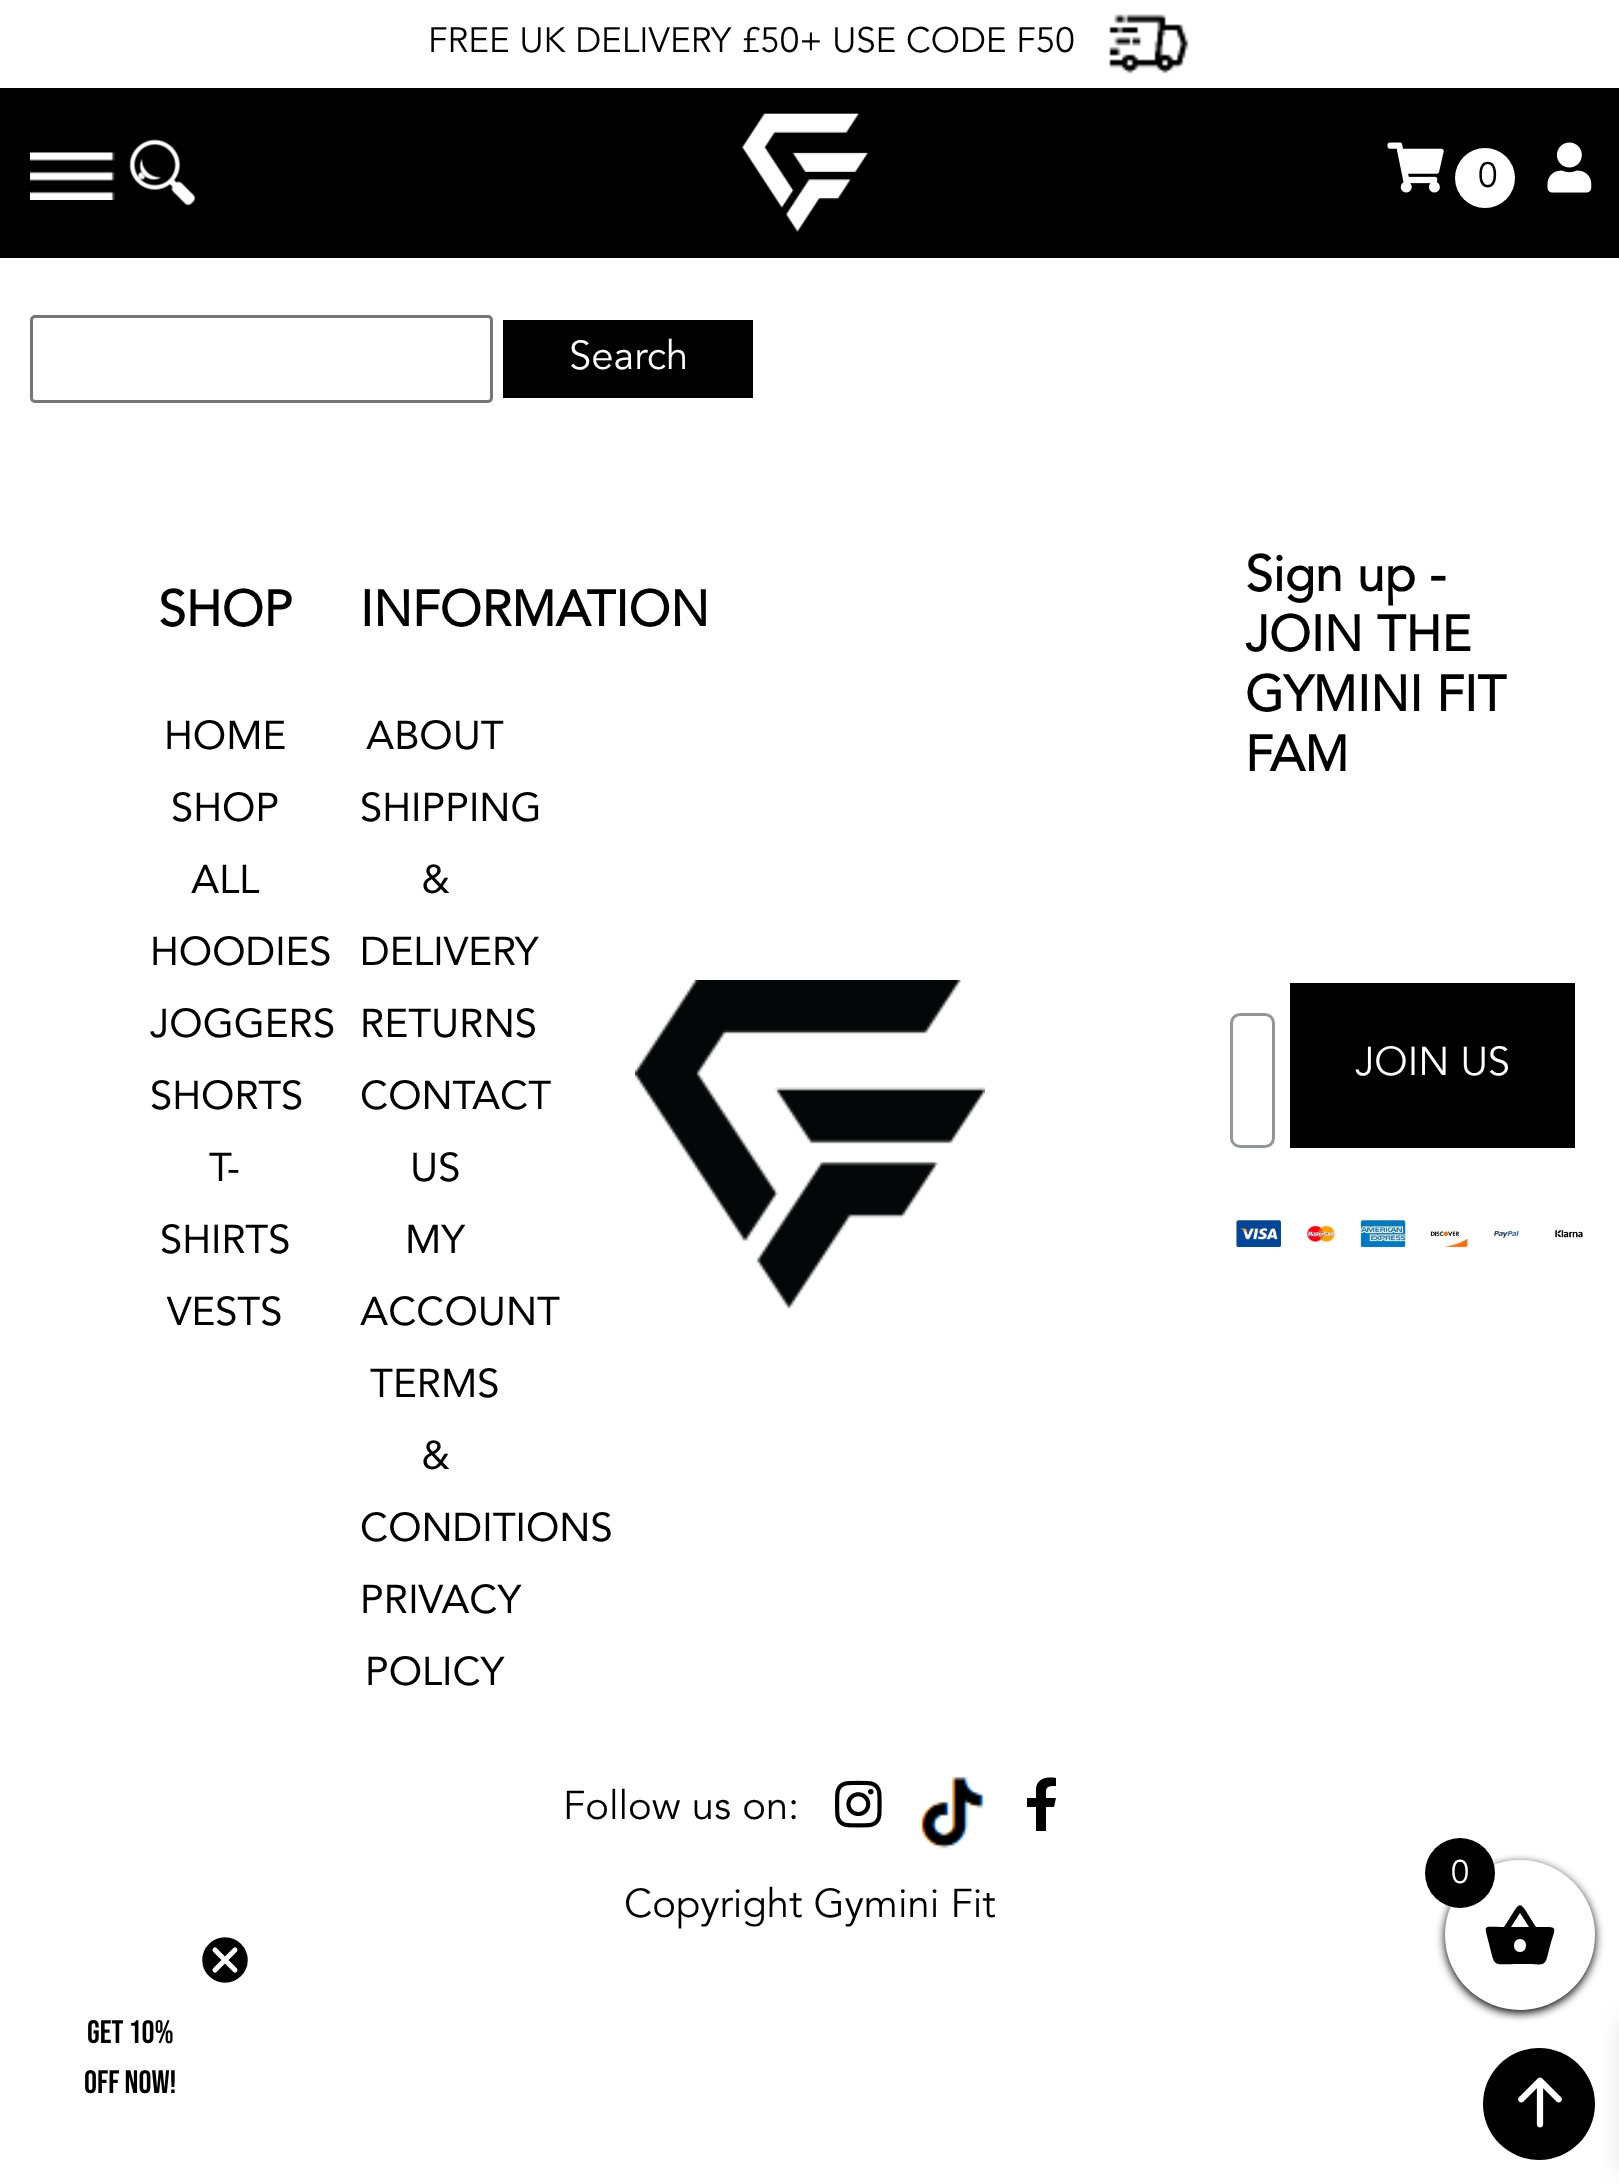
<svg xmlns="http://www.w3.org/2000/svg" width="1619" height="2183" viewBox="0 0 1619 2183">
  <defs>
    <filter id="blur1" x="-50%" y="-200%" width="200%" height="500%"><feGaussianBlur stdDeviation="5"/></filter>
    <filter id="blur2" x="-50%" y="-200%" width="200%" height="500%"><feGaussianBlur stdDeviation="12.5"/></filter>
  </defs>
  <rect width="100%" height="100%" fill="#ffffff"/>
  <rect x="0" y="88" width="1619" height="170" fill="#000000"/>
  <text x="428" y="52" font-family="'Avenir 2'" font-size="35" fill="#000000">FREE UK DELIVERY £50+ USE CODE F50</text>
  <image x="1109" y="14" width="80" height="60" href="img1.png"/>
  <image x="30" y="152" width="85" height="48" href="img2.png"/>
  <image x="129" y="139" width="67" height="67" href="img3.png"/>
  <image x="742" y="113" width="126" height="119" href="img4.png"/>
  <image x="1387" y="142" width="57" height="51" href="img5.png"/>
  <circle cx="1485" cy="178" r="30" fill="#ffffff"/>
  <text x="1478" y="187" font-family="'Avenir 2'" font-size="35" fill="#000000">0</text>
  <image x="1547" y="142" width="45" height="51" href="img6.png"/>
  <rect x="31.5" y="316.5" width="460" height="85" rx="3.5" fill="none" stroke="#767676" stroke-width="3"/>
  <rect x="503" y="320" width="250" height="78" fill="#000000"/>
  <text x="569" y="369" font-family="'Avenir 2'" font-size="40" fill="#ffffff">Search</text>
  <text x="158" y="626" font-family="Avenir" font-size="50" font-weight="bold" fill="#000000">SHOP</text>
  <text x="164" y="749" font-family="Avenir" font-size="40" fill="#000000">HOME</text>
  <text x="171" y="821" font-family="Avenir" font-size="40" fill="#000000">SHOP</text>
  <text x="191" y="893" font-family="Avenir" font-size="40" fill="#000000">ALL</text>
  <text x="150" y="965" font-family="Avenir" font-size="40" fill="#000000">HOODIES</text>
  <text x="150" y="1037" font-family="Avenir" font-size="40" fill="#000000">JOGGERS</text>
  <text x="150" y="1109" font-family="Avenir" font-size="40" fill="#000000">SHORTS</text>
  <text x="209" y="1181" font-family="Avenir" font-size="40" fill="#000000">T-</text>
  <text x="160" y="1253" font-family="Avenir" font-size="40" fill="#000000">SHIRTS</text>
  <text x="167" y="1325" font-family="Avenir" font-size="40" fill="#000000">VESTS</text>
  <text x="360" y="626" font-family="Avenir" font-size="50" font-weight="bold" fill="#000000">INFORMATION</text>
  <text x="366" y="749" font-family="Avenir" font-size="40" fill="#000000">ABOUT</text>
  <text x="360" y="821" font-family="Avenir" font-size="40" fill="#000000">SHIPPING</text>
  <text x="421" y="893" font-family="Avenir" font-size="40" fill="#000000">&amp;</text>
  <text x="360" y="965" font-family="Avenir" font-size="40" fill="#000000">DELIVERY</text>
  <text x="360" y="1037" font-family="Avenir" font-size="40" fill="#000000">RETURNS</text>
  <text x="360" y="1109" font-family="Avenir" font-size="40" fill="#000000">CONTACT</text>
  <text x="410" y="1181" font-family="Avenir" font-size="40" fill="#000000">US</text>
  <text x="405" y="1253" font-family="Avenir" font-size="40" fill="#000000">MY</text>
  <text x="360" y="1325" font-family="Avenir" font-size="40" fill="#000000">ACCOUNT</text>
  <text x="370" y="1397" font-family="Avenir" font-size="40" fill="#000000">TERMS</text>
  <text x="421" y="1469" font-family="Avenir" font-size="40" fill="#000000">&amp;</text>
  <text x="360" y="1541" font-family="Avenir" font-size="40" fill="#000000">CONDITIONS</text>
  <text x="360" y="1613" font-family="Avenir" font-size="40" fill="#000000">PRIVACY</text>
  <text x="365" y="1685" font-family="Avenir" font-size="40" fill="#000000">POLICY</text>
  <image x="635" y="980" width="350" height="329" href="img7.png"/>
  <text x="1245" y="591" font-family="Avenir" font-size="50" font-weight="bold" fill="#000000">Sign up -</text>
  <text x="1245" y="651" font-family="Avenir" font-size="50" font-weight="bold" fill="#000000">JOIN THE</text>
  <text x="1245" y="711" font-family="Avenir" font-size="50" font-weight="bold" fill="#000000">GYMINI FIT</text>
  <text x="1245" y="771" font-family="Avenir" font-size="50" font-weight="bold" fill="#000000">FAM</text>
  <rect x="1231.5" y="1014.5" width="42" height="132" rx="8.5" fill="none" stroke="#949596" stroke-width="3"/>
  <rect x="1290" y="983" width="285" height="165" fill="#000000"/>
  <text x="1355" y="1075" font-family="'Avenir 2'" font-size="40" fill="#ffffff">JOIN US</text>
  <image x="1230" y="1214" width="354" height="35" href="img8.png"/>
  <text x="563" y="1819" font-family="'Avenir 2'" font-size="40" fill="#000000">Follow us on:</text>
  <image x="835" y="1780" width="47" height="48" href="img9.png"/>
  <image x="919" y="1776" width="65" height="73" href="img10.png"/>
  <path d="M1054 1807L1056 1798H1046C1046 1788 1045 1786 1056 1786V1778C1048 1777 1038 1777 1036 1788V1798H1027V1807H1036V1831H1046V1807Z" fill="#000000"/>
  <text x="624" y="1917" font-family="'Avenir 2'" font-size="40" fill="#000000">Copyright Gymini Fit</text>
  <rect x="1445" y="1863" width="150" height="150" rx="75" fill="#000000" filter="url(#blur1)"/>
  <circle cx="1539" cy="2104" r="56" fill="#000000"/>
  <rect x="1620" y="2020" width="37" height="153" fill="#000000" fill-opacity="0.1" filter="url(#blur2)"/>
  <circle cx="1520" cy="1935" r="75" fill="#ffffff"/>
  <path d="M1520 1952C1528 1952 1528 1939 1520 1939C1512 1939 1512 1952 1520 1952ZM1511 1927H1529L1520 1913ZM1536 1927C1559 1927 1556 1925 1550 1946C1544 1969 1548 1964 1520 1964C1490 1964 1496 1969 1488 1940C1484 1924 1483 1927 1504 1927C1523 1898 1517 1898 1536 1927Z" fill="#000000"/>
  <circle cx="1460" cy="1873" r="35" fill="#000000"/>
  <text x="1451" y="1883" font-family="'Avenir 2'" font-size="32.5" fill="#ffffff">0</text>
  <circle cx="225" cy="1960" r="24" fill="#000000" stroke="#ffffff" stroke-width="2.5"/>
  <path d="M215 1950L235 1970M215 1970L235 1950Z" fill="none" stroke="#ffffff" stroke-width="5" stroke-linecap="round" stroke-linejoin="round"/>
  <text x="87" y="2043" font-family="Bebas Neue" font-size="32.5" fill="#000000">GET 10%</text>
  <text x="84" y="2093" font-family="Bebas Neue" font-size="32.5" fill="#000000">OFF NOW!</text>
  <image x="1518" y="2077" width="44" height="51" href="img11.png"/>
</svg>
